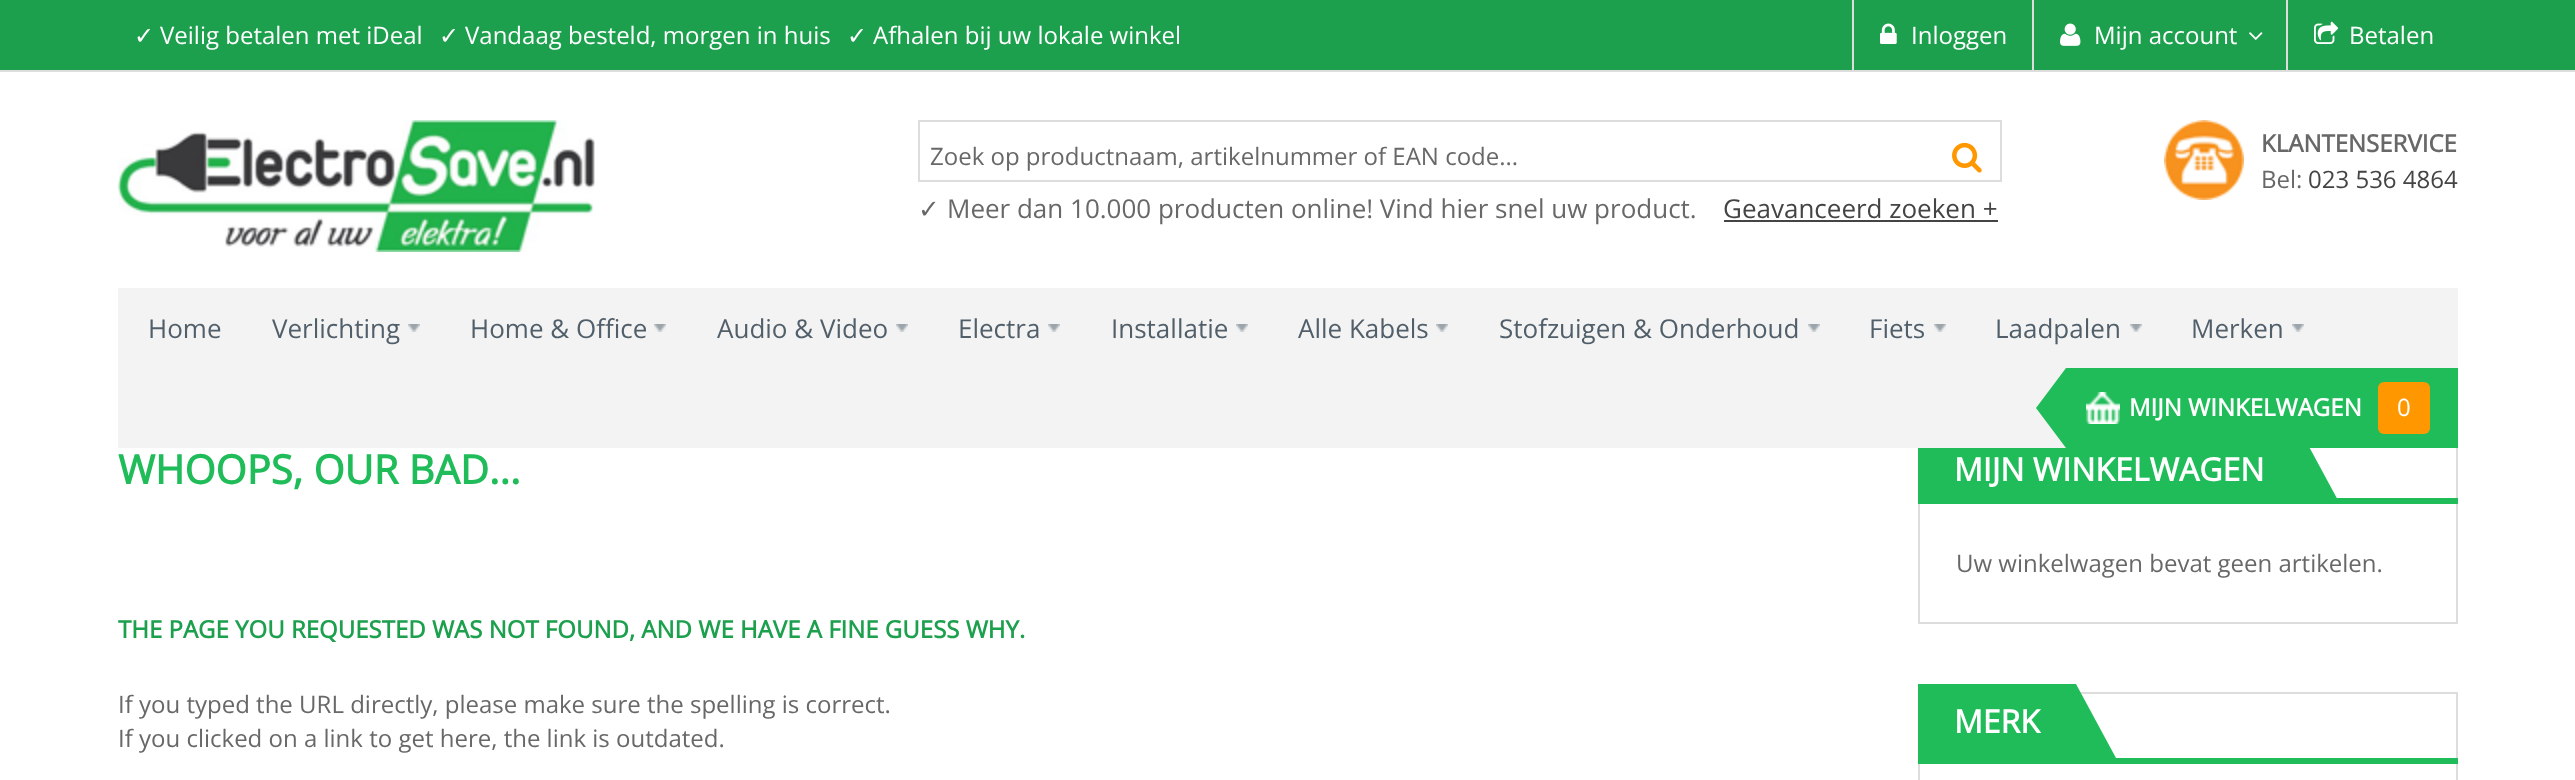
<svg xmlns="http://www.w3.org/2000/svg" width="2575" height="780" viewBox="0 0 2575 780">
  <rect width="100%" height="100%" fill="#ffffff"/>
  <rect x="0" y="0" width="2575" height="70" fill="#1da04e"/>
  <rect x="0" y="70" width="2575" height="2" fill="#dddddd"/>
  <text x="134" y="44" font-family="DejaVu Sans" font-size="24" fill="#ffffff">✓</text>
  <text x="160" y="44" font-family="Open Sans" font-size="24" fill="#ffffff">Veilig betalen met iDeal</text>
  <text x="439" y="44" font-family="DejaVu Sans" font-size="24" fill="#ffffff">✓</text>
  <text x="465" y="44" font-family="Open Sans" font-size="24" fill="#ffffff">Vandaag besteld, morgen in huis</text>
  <text x="847" y="44" font-family="DejaVu Sans" font-size="24" fill="#ffffff">✓</text>
  <text x="873" y="44" font-family="Open Sans" font-size="24" fill="#ffffff">Afhalen bij uw lokale winkel</text>
  <rect x="1852" y="0" width="2" height="72" fill="#dddddd"/>
  <image x="1880" y="23" width="17" height="21" href="img1.png"/>
  <text x="1911" y="44" font-family="Open Sans" font-size="24" fill="#ffffff">Inloggen</text>
  <rect x="2032" y="0" width="2" height="72" fill="#dddddd"/>
  <image x="2060" y="23" width="21" height="23" href="img2.png"/>
  <text x="2094" y="44" font-family="Open Sans" font-size="24" fill="#ffffff">Mijn account</text>
  <image x="2249" y="32" width="14" height="8" href="img3.png"/>
  <rect x="2286" y="0" width="2" height="72" fill="#dddddd"/>
  <image x="2314" y="21" width="25" height="23" href="img4.png"/>
  <text x="2349" y="44" font-family="Open Sans" font-size="24" fill="#ffffff">Betalen</text>
  <image x="118" y="120" width="477" height="132" href="img5.png"/>
  <rect x="919" y="121" width="1082" height="60" fill="none" stroke="#dddddd" stroke-width="2"/>
  <text x="930" y="165" font-family="Open Sans" font-size="24" fill="#686868">Zoek op productnaam, artikelnummer of EAN code...</text>
  <image x="1952" y="142" width="30" height="31" href="img6.png"/>
  <text x="918" y="218" font-family="DejaVu Sans" font-size="26" fill="#686868">✓</text>
  <text x="947" y="218" font-family="Open Sans" font-size="26" fill="#686868">Meer dan 10.000 producten online! Vind hier snel uw product.</text>
  <text x="1723" y="218" font-family="Open Sans" font-size="26" fill="#444444">Geavanceerd zoeken +</text>
  <rect x="1724" y="220" width="274" height="2" fill="#444444"/>
  <image x="2164" y="120" width="80" height="80" href="img7.png"/>
  <text x="2261" y="152" font-family="Open Sans" font-size="24" font-weight="bold" fill="#686868">KLANTENSERVICE</text>
  <text x="2261" y="188" font-family="Open Sans" font-size="24" fill="#686868">Bel:</text>
  <text x="2308" y="188" font-family="Open Sans" font-size="24" fill="#444444">023 536 4864</text>
  <rect x="1919" y="439" width="538" height="184" fill="none" stroke="#dddddd" stroke-width="2"/>
  <rect x="1918" y="498" width="540" height="6" fill="#20bc5a"/>
  <path d="M2340 504H2300V430Z" fill="#20bc5a"/>
  <rect x="118" y="288" width="2340" height="160" fill="#f3f3f3"/>
  <text x="148" y="338" font-family="Open Sans" font-size="26" fill="#515f6a">Home</text>
  <text x="272" y="338" font-family="Open Sans" font-size="26" fill="#515f6a">Verlichting</text>
  <image x="408" y="324" width="12" height="8" href="img8.png"/>
  <text x="470" y="338" font-family="Open Sans" font-size="26" fill="#515f6a">Home &amp; Office</text>
  <image x="654" y="324" width="12" height="8" href="img8.png"/>
  <text x="717" y="338" font-family="Open Sans" font-size="26" fill="#515f6a">Audio &amp; Video</text>
  <image x="896" y="324" width="12" height="8" href="img8.png"/>
  <text x="958" y="338" font-family="Open Sans" font-size="26" fill="#515f6a">Electra</text>
  <image x="1048" y="324" width="12" height="8" href="img8.png"/>
  <text x="1111" y="338" font-family="Open Sans" font-size="26" fill="#515f6a">Installatie</text>
  <image x="1236" y="324" width="12" height="8" href="img8.png"/>
  <text x="1298" y="338" font-family="Open Sans" font-size="26" fill="#515f6a">Alle Kabels</text>
  <image x="1436" y="324" width="12" height="8" href="img8.png"/>
  <text x="1499" y="338" font-family="Open Sans" font-size="26" fill="#515f6a">Stofzuigen &amp; Onderhoud</text>
  <image x="1808" y="324" width="12" height="8" href="img8.png"/>
  <text x="1869" y="338" font-family="Open Sans" font-size="26" fill="#515f6a">Fiets</text>
  <image x="1934" y="324" width="12" height="8" href="img8.png"/>
  <text x="1995" y="338" font-family="Open Sans" font-size="26" fill="#515f6a">Laadpalen</text>
  <image x="2130" y="324" width="12" height="8" href="img8.png"/>
  <text x="2191" y="338" font-family="Open Sans" font-size="26" fill="#515f6a">Merken</text>
  <image x="2292" y="324" width="12" height="8" href="img8.png"/>
  <rect x="2066" y="368" width="392" height="80" fill="#20bc5a"/>
  <image x="2086" y="392" width="34" height="32" href="img9.png"/>
  <path d="M2066 368V448L2036 408Z" fill="#20bc5a"/>
  <text x="2129" y="416" font-family="Open Sans" font-size="24" font-weight="bold" fill="#ffffff">MIJN WINKELWAGEN</text>
  <rect x="2378" y="382" width="52" height="52" rx="6" fill="#ff9800"/>
  <text x="2397" y="416" font-family="Open Sans" font-size="24" fill="#ffffff">0</text>
  <text x="118" y="484" font-family="Open Sans" font-size="40" font-weight="bold" fill="#20bc5a">WHOOPS, OUR BAD...</text>
  <text x="118" y="638" font-family="Open Sans" font-size="24" font-weight="bold" fill="#1da04e">THE PAGE YOU REQUESTED WAS NOT FOUND, AND WE HAVE A FINE GUESS WHY.</text>
  <text x="118" y="713" font-family="Open Sans" font-size="24" fill="#686868">If you typed the URL directly, please make sure the spelling is correct.</text>
  <text x="118" y="747" font-family="Open Sans" font-size="24" fill="#686868">If you clicked on a link to get here, the link is outdated.</text>
  <rect x="1918" y="448" width="382" height="50" fill="#20bc5a"/>
  <text x="1954" y="481" font-family="Open Sans" font-size="32" font-weight="bold" fill="#ffffff">MIJN WINKELWAGEN</text>
  <text x="1956" y="572" font-family="Open Sans" font-size="24" fill="#686868">Uw winkelwagen bevat geen artikelen.</text>
  <rect x="1919" y="693" width="538" height="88" fill="none" stroke="#dddddd" stroke-width="2"/>
  <rect x="1918" y="758" width="540" height="6" fill="#20bc5a"/>
  <rect x="1918" y="684" width="158" height="74" fill="#20bc5a"/>
  <text x="1954" y="733" font-family="Open Sans" font-size="32" font-weight="bold" fill="#ffffff">MERK</text>
  <path d="M2116 758H2076V684Z" fill="#20bc5a"/>
</svg>
